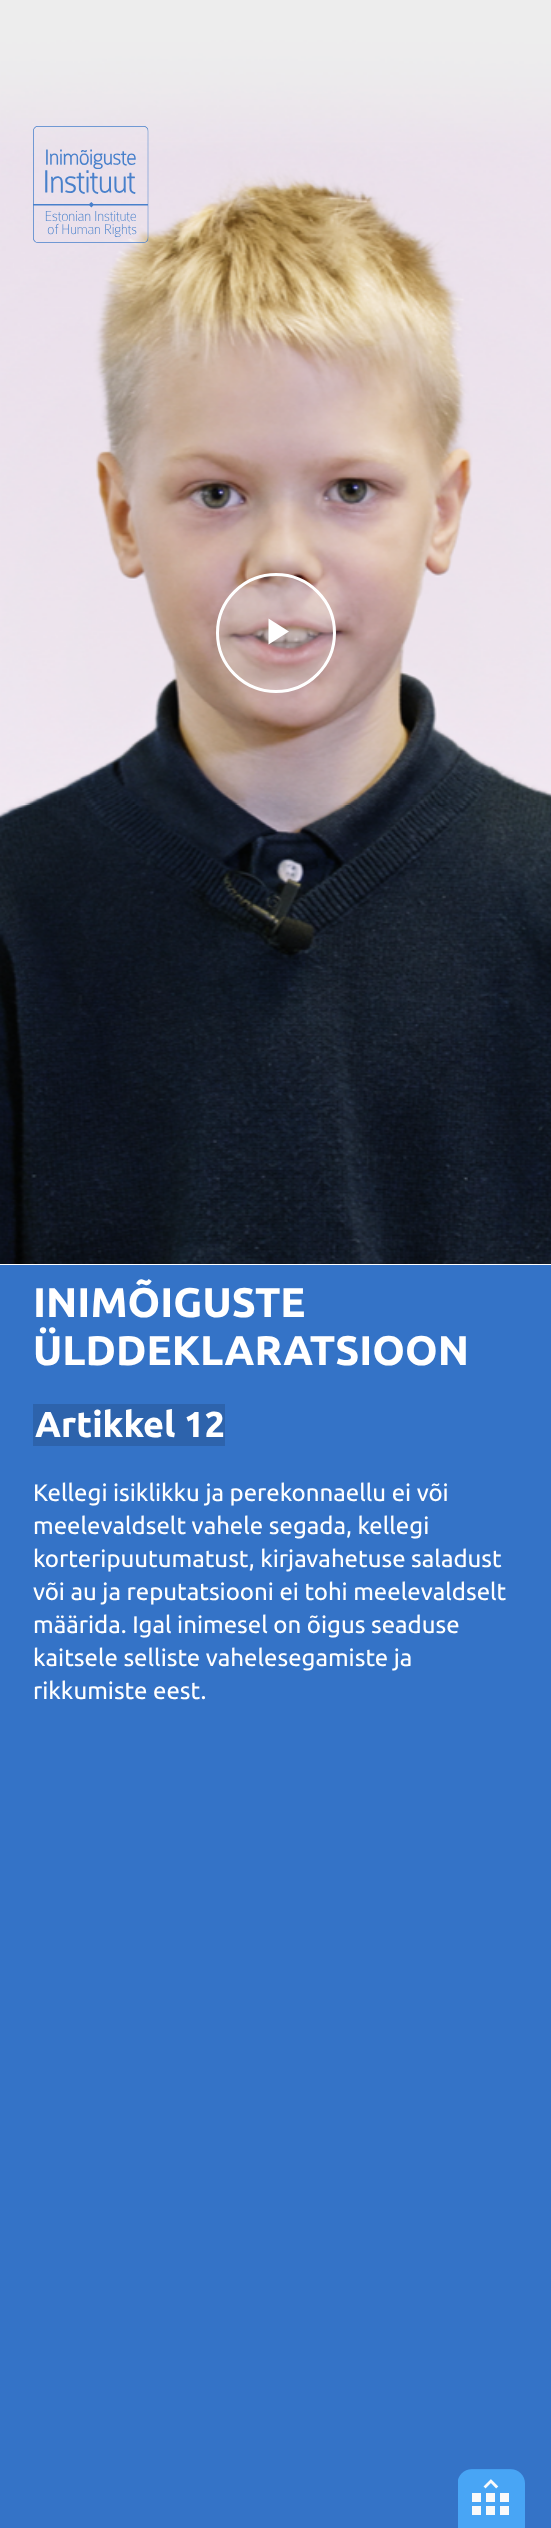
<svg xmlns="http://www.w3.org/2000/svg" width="551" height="2528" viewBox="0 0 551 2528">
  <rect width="100%" height="100%" fill="#3473c7"/>
  <image x="0" y="0" width="551" height="1264" href="img2.png"/>
  <image x="33" y="126" width="116" height="117" href="img1.png"/>
  <rect x="0" y="1264" width="551" height="1" fill="#ffffff"/>
  <circle cx="276" cy="633" r="58.5" fill="#ffffff" fill-opacity="0.25" stroke="#ffffff" stroke-width="3"/>
  <path d="M268.5 618.5V644.5L289 631.5Z" fill="#ffffff"/>
  <text x="33" y="1317" font-family="Ubuntu" font-size="41.4" font-weight="bold" fill="#ffffff">INIMÕIGUSTE</text>
  <text x="33" y="1365" font-family="Ubuntu" font-size="41.4" font-weight="bold" fill="#ffffff">ÜLDDEKLARATSIOON</text>
  <rect x="33" y="1404" width="192" height="42" fill="#2d63ac"/>
  <text x="35" y="1437" font-family="Ubuntu" font-size="36" font-weight="bold" fill="#ffffff">Artikkel 12</text>
  <text x="33" y="1501" font-family="Ubuntu" font-size="24" fill="#ffffff">Kellegi isiklikku ja perekonnaellu ei või</text>
  <text x="33" y="1534" font-family="Ubuntu" font-size="24" fill="#ffffff">meelevaldselt vahele segada, kellegi</text>
  <text x="33" y="1567" font-family="Ubuntu" font-size="24" fill="#ffffff">korteripuutumatust, kirjavahetuse saladust</text>
  <text x="33" y="1600" font-family="Ubuntu" font-size="24" fill="#ffffff">või au ja reputatsiooni ei tohi meelevaldselt</text>
  <text x="33" y="1633" font-family="Ubuntu" font-size="24" fill="#ffffff">määrida. Igal inimesel on õigus seaduse</text>
  <text x="33" y="1666" font-family="Ubuntu" font-size="24" fill="#ffffff">kaitsele selliste vahelesegamiste ja</text>
  <text x="33" y="1699" font-family="Ubuntu" font-size="24" fill="#ffffff">rikkumiste eest.</text>
  <image x="458" y="2469" width="67" height="59" href="img3.png"/>
</svg>
